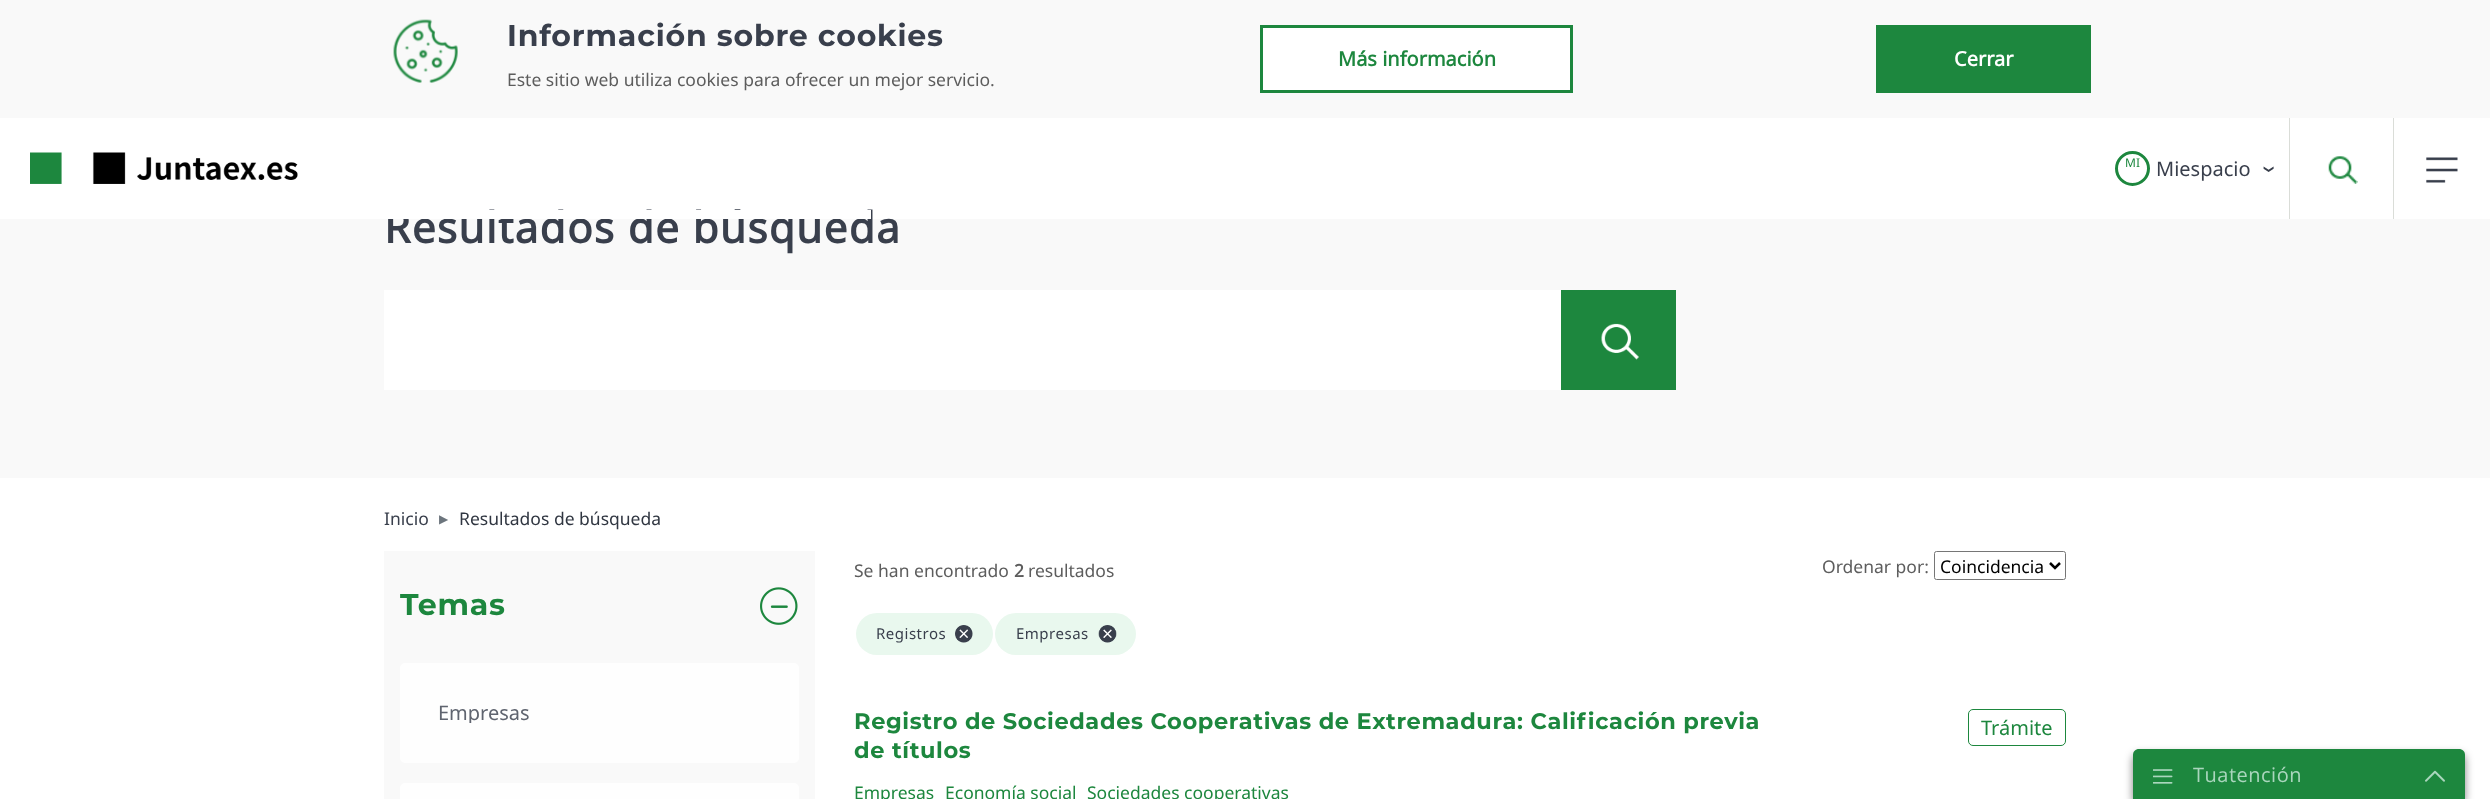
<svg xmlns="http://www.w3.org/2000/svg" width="2490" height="799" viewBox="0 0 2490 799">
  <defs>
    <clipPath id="clip1"><rect x="438" y="703" width="323" height="20"/></clipPath>
    <filter id="blur1" x="-50%" y="-200%" width="200%" height="500%"><feGaussianBlur stdDeviation="4.5"/></filter>
  </defs>
  <rect width="100%" height="100%" fill="#ffffff"/>
  <rect x="0" y="0" width="2490" height="118" fill="#f9f9f9"/>
  <image x="393" y="19" width="65" height="64" href="img1.png"/>
  <text x="507" y="46" font-family="Montserrat" font-size="30" font-weight="bold" letter-spacing="0.8" fill="#393f4c">Información sobre cookies</text>
  <text x="507" y="86" font-family="Noto Sans" font-size="17.5" fill="#5d5d5d">Este sitio web utiliza cookies para ofrecer un mejor servicio.</text>
  <rect x="1261.5" y="26.5" width="310" height="65" fill="#ffffff" stroke="#1d873e" stroke-width="3"/>
  <text x="1338" y="66" font-family="Noto Sans" font-size="20" font-weight="bold" fill="#1d873e">Más información</text>
  <rect x="1876" y="25" width="215" height="68" fill="#1d873e"/>
  <text x="1954" y="66" font-family="Noto Sans" font-size="20" font-weight="bold" fill="#ffffff">Cerrar</text>
  <rect x="0" y="219" width="2490" height="259" fill="#f9f9f9"/>
  <text x="384" y="243" font-family="Noto Sans" font-size="42.5" font-weight="bold" letter-spacing="1.2" fill="#393f4c">Resultados de búsqueda</text>
  <rect x="387" y="210" width="484" height="9" fill="#ffffff"/>
  <image x="30" y="152" width="268" height="32" href="img2.png"/>
  <circle cx="2132.5" cy="168.5" r="16" fill="none" stroke="#1d873e" stroke-width="3"/>
  <text x="2125" y="167" font-family="Noto Sans" font-size="12" fill="#1d873e">MI</text>
  <text x="2156" y="176" font-family="Noto Sans" font-size="20" fill="#393f4c">Miespacio</text>
  <text x="2266" y="165" transform="rotate(90 2266 165)" font-family="DejaVu Sans" font-size="10" fill="#393f4c">❯</text>
  <rect x="2393" y="118" width="1" height="101" fill="#daddd8"/>
  <rect x="2289" y="118" width="1" height="101" fill="#daddd8"/>
  <image x="2328" y="156" width="30" height="28" href="img3.png"/>
  <image x="2426" y="157" width="32" height="26" href="img4.png"/>
  <rect x="384" y="290" width="1177" height="100" fill="#ffffff"/>
  <rect x="1561" y="290" width="115" height="100" fill="#1d873e"/>
  <image x="1601" y="323" width="38" height="37" href="img5.png"/>
  <text x="384" y="525" font-family="Noto Sans" font-size="17.5" fill="#393f4c">Inicio</text>
  <text x="439" y="523" font-family="DejaVu Sans" font-size="12" fill="#6c757d">▶</text>
  <text x="459" y="525" font-family="Noto Sans" font-size="17.5" fill="#303641">Resultados de búsqueda</text>
  <rect x="384" y="551" width="431" height="248" fill="#f9f9f9"/>
  <text x="400" y="615" font-family="Montserrat" font-size="30" font-weight="bold" letter-spacing="0.8" fill="#1d873e">Temas</text>
  <image x="760" y="587" width="38" height="38" href="img6.png"/>
  <rect x="400" y="663" width="399" height="100" rx="5" fill="#fefefe"/>
  <g clip-path="url(#clip1)">
    <text x="438" y="720" font-family="Noto Sans" font-size="20" fill="#5f646f">Empresas</text>
  </g>
  <rect x="400" y="783" width="399" height="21" rx="5" fill="#fefefe"/>
  <text x="854" y="577" font-family="Noto Sans" font-size="17.5" fill="#5d5d5d">Se han encontrado</text>
  <text x="1014" y="577" font-family="Noto Sans" font-size="17.5" font-weight="bold" fill="#5d5d5d">2</text>
  <text x="1028" y="577" font-family="Noto Sans" font-size="17.5" fill="#5d5d5d">resultados</text>
  <text x="1822" y="573" font-family="Noto Sans" font-size="17.5" fill="#5d5d5d">Ordenar por:</text>
  <rect x="1934.5" y="551.5" width="131" height="28" rx="2" fill="none" stroke="#767676"/>
  <path d="M2050 563L2055 568L2060 563" fill="none" stroke="#000000" stroke-width="2.5"/>
  <text x="1940" y="573" font-family="Noto Sans" font-size="17.5" fill="#000000">Coincidencia</text>
  <rect x="856" y="613" width="137" height="42" rx="21" fill="#e9f8ee"/>
  <text x="876" y="639" font-family="Noto Sans" font-size="15" letter-spacing="0.5" fill="#393f4c">Registros</text>
  <image x="955" y="625" width="18" height="18" href="img7.png"/>
  <rect x="995" y="613" width="141" height="42" rx="21" fill="#e9f8ee"/>
  <text x="1016" y="639" font-family="Noto Sans" font-size="15" letter-spacing="0.5" fill="#393f4c">Empresas</text>
  <image x="1098" y="625" width="19" height="18" href="img8.png"/>
  <text x="854" y="729" font-family="Montserrat" font-size="22.5" font-weight="bold" letter-spacing="0.6" fill="#1d873e">Registro de Sociedades Cooperativas de Extremadura: Calificación previa</text>
  <text x="854" y="758" font-family="Montserrat" font-size="22.5" font-weight="bold" letter-spacing="0.6" fill="#1d873e">de títulos</text>
  <text x="854" y="799" font-family="Noto Sans" font-size="17.5" fill="#1d873e">Empresas</text>
  <text x="945" y="799" font-family="Noto Sans" font-size="17.5" fill="#1d873e">Economía social</text>
  <text x="1087" y="799" font-family="Noto Sans" font-size="17.5" fill="#1d873e">Sociedades cooperativas</text>
  <rect x="1968.5" y="709.5" width="97" height="36" rx="4.5" fill="none" stroke="#1d873e"/>
  <text x="1981" y="735" font-family="Noto Sans" font-size="20" fill="#1d873e">Trámite</text>
  <rect x="2133" y="754" width="332" height="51" rx="6" fill="#000000" fill-opacity="0.5" filter="url(#blur1)"/>
  <path d="M2139 749H2459C2462.5 749 2465 751.5 2465 755V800H2133V755C2133 751.5 2135.5 749 2139 749Z" fill="#1d873e"/>
  <image x="2153" y="769" width="20" height="15" href="img9.png"/>
  <text x="2193" y="782" font-family="Open Sans" font-size="20" letter-spacing="0.5" fill="#aad6bd">Tuatención</text>
  <image x="2425" y="770" width="20" height="12" href="img10.png"/>
</svg>
